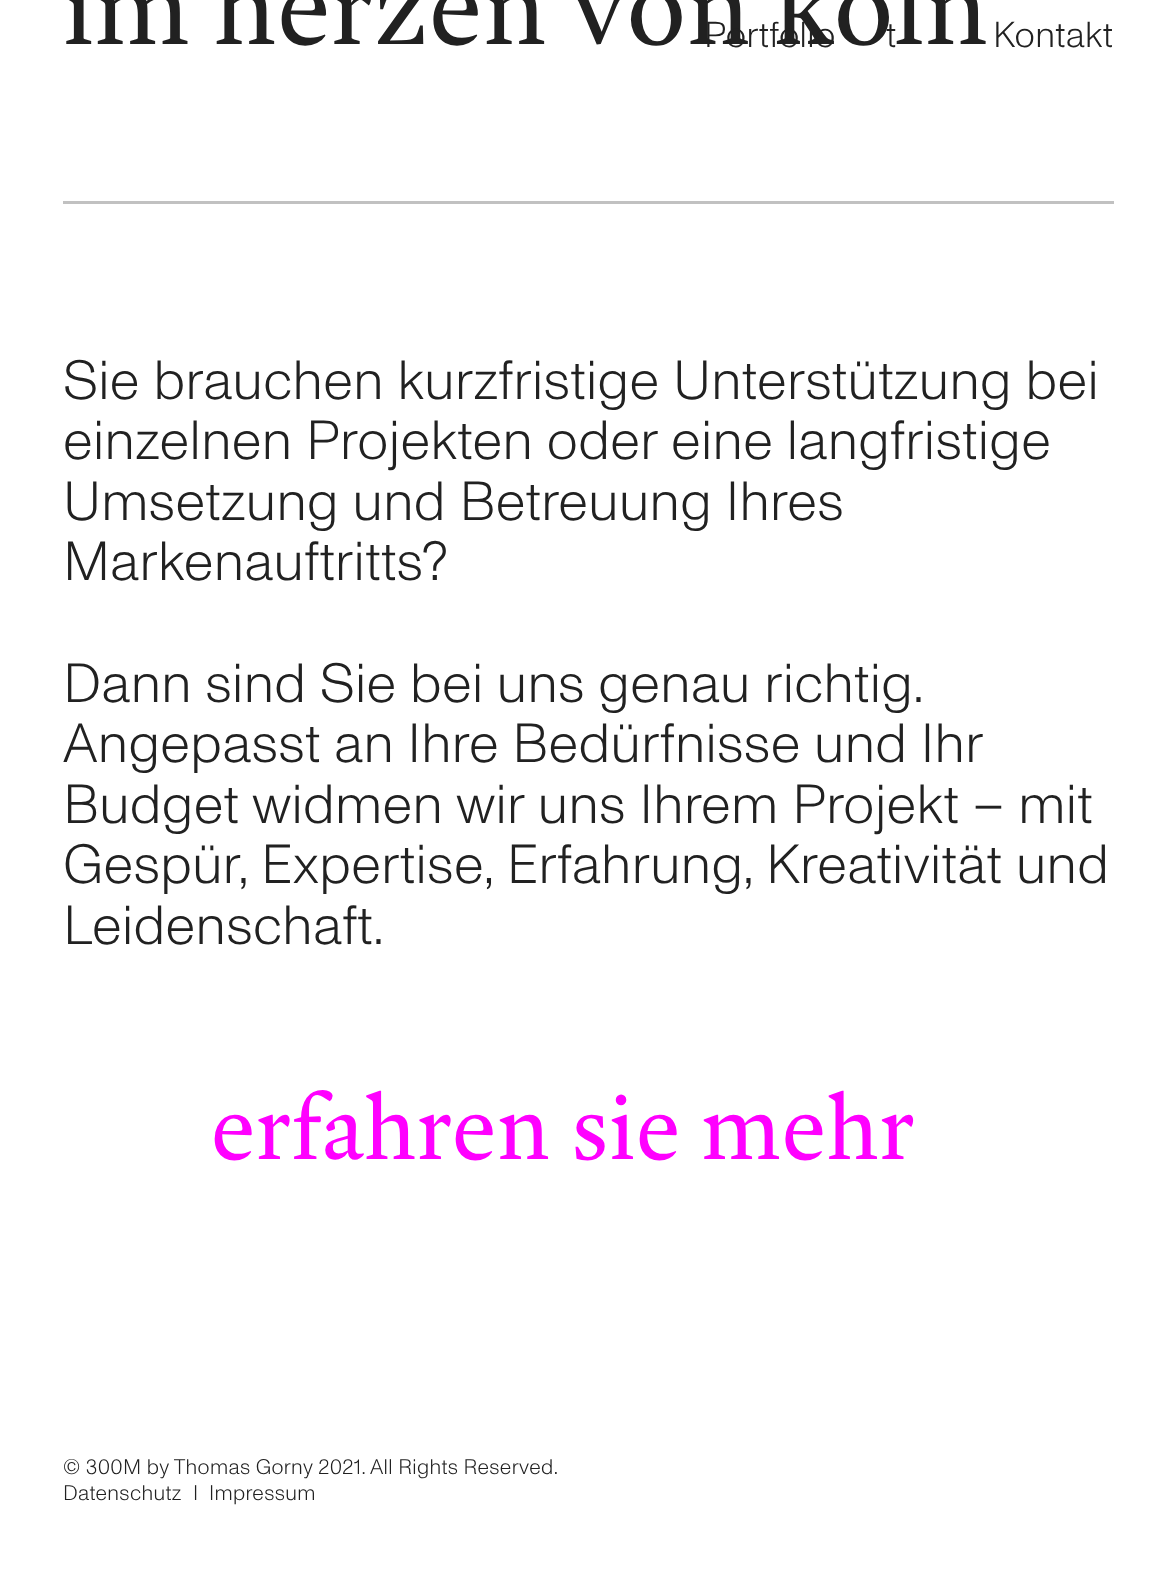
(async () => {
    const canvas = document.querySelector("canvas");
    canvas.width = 1176;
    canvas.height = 1586;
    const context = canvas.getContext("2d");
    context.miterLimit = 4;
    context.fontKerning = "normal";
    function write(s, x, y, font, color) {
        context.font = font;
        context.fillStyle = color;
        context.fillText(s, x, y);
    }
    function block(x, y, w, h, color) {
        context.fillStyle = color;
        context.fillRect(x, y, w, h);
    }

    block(0, 0, 1176, 1586, "rgb(255, 255, 255)");
    context.letterSpacing = "1.1px";
    write("im herzen von köln", 63, 44, "110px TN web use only", "rgb(33, 33, 33)");
    block(63, 201, 1051, 3, "rgb(193, 193, 193)");
    context.letterSpacing = "0.35px";
    write("Sie brauchen kurzfristige Unterstützung bei", 63, 399, "300 55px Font", "rgb(33, 33, 33)");
    write("einzelnen Projekten oder eine langfristige", 63, 459, "300 55px Font", "rgb(33, 33, 33)");
    write("Umsetzung und Betreuung Ihres", 63, 520, "300 55px Font", "rgb(33, 33, 33)");
    write("Markenauftritts?", 63, 580, "300 55px Font", "rgb(33, 33, 33)");
    context.wordSpacing = "-0.25px";
    write("Dann sind Sie bei uns genau richtig.", 63, 702, "300 55px Font", "rgb(33, 33, 33)");
    write("Angepasst an Ihre Bedürfnisse und Ihr", 63, 762, "300 55px Font", "rgb(33, 33, 33)");
    context.wordSpacing = "0px";
    write("Budget widmen wir uns Ihrem Projekt – mit", 63, 823, "300 55px Font", "rgb(33, 33, 33)");
    write("Gespür, Expertise, Erfahrung, Kreativität und", 63, 883, "300 55px Font", "rgb(33, 33, 33)");
    write("Leidenschaft.", 63, 944, "300 55px Font", "rgb(33, 33, 33)");
    context.letterSpacing = "1.1px";
    write("erfahren sie mehr", 211, 1159, "91.75px TN web use only", "rgb(255, 0, 255)");
    context.letterSpacing = "0.35px";
    write("Portfolio", 704, 47, "300 36px Font", "rgb(33, 33, 33)");
    write("t", 886, 47, "300 36px Font", "rgb(33, 33, 33)");
    write("Kontakt", 993, 47, "300 36px Font", "rgb(33, 33, 33)");
    context.wordSpacing = "-0.25px";
    write("© 300M by Thomas Gorny 2021. All Rights Reserved.", 63, 1474, "300 21.2px Font", "rgb(33, 33, 33)");
    context.wordSpacing = "0px";
    write("Datenschutz", 63, 1500, "300 21.2px Font", "rgb(33, 33, 33)");
    write("I", 193, 1500, "300 21.2px Font", "rgb(33, 33, 33)");
    write("Impressum", 209, 1500, "300 21.2px Font", "rgb(33, 33, 33)");
})();
